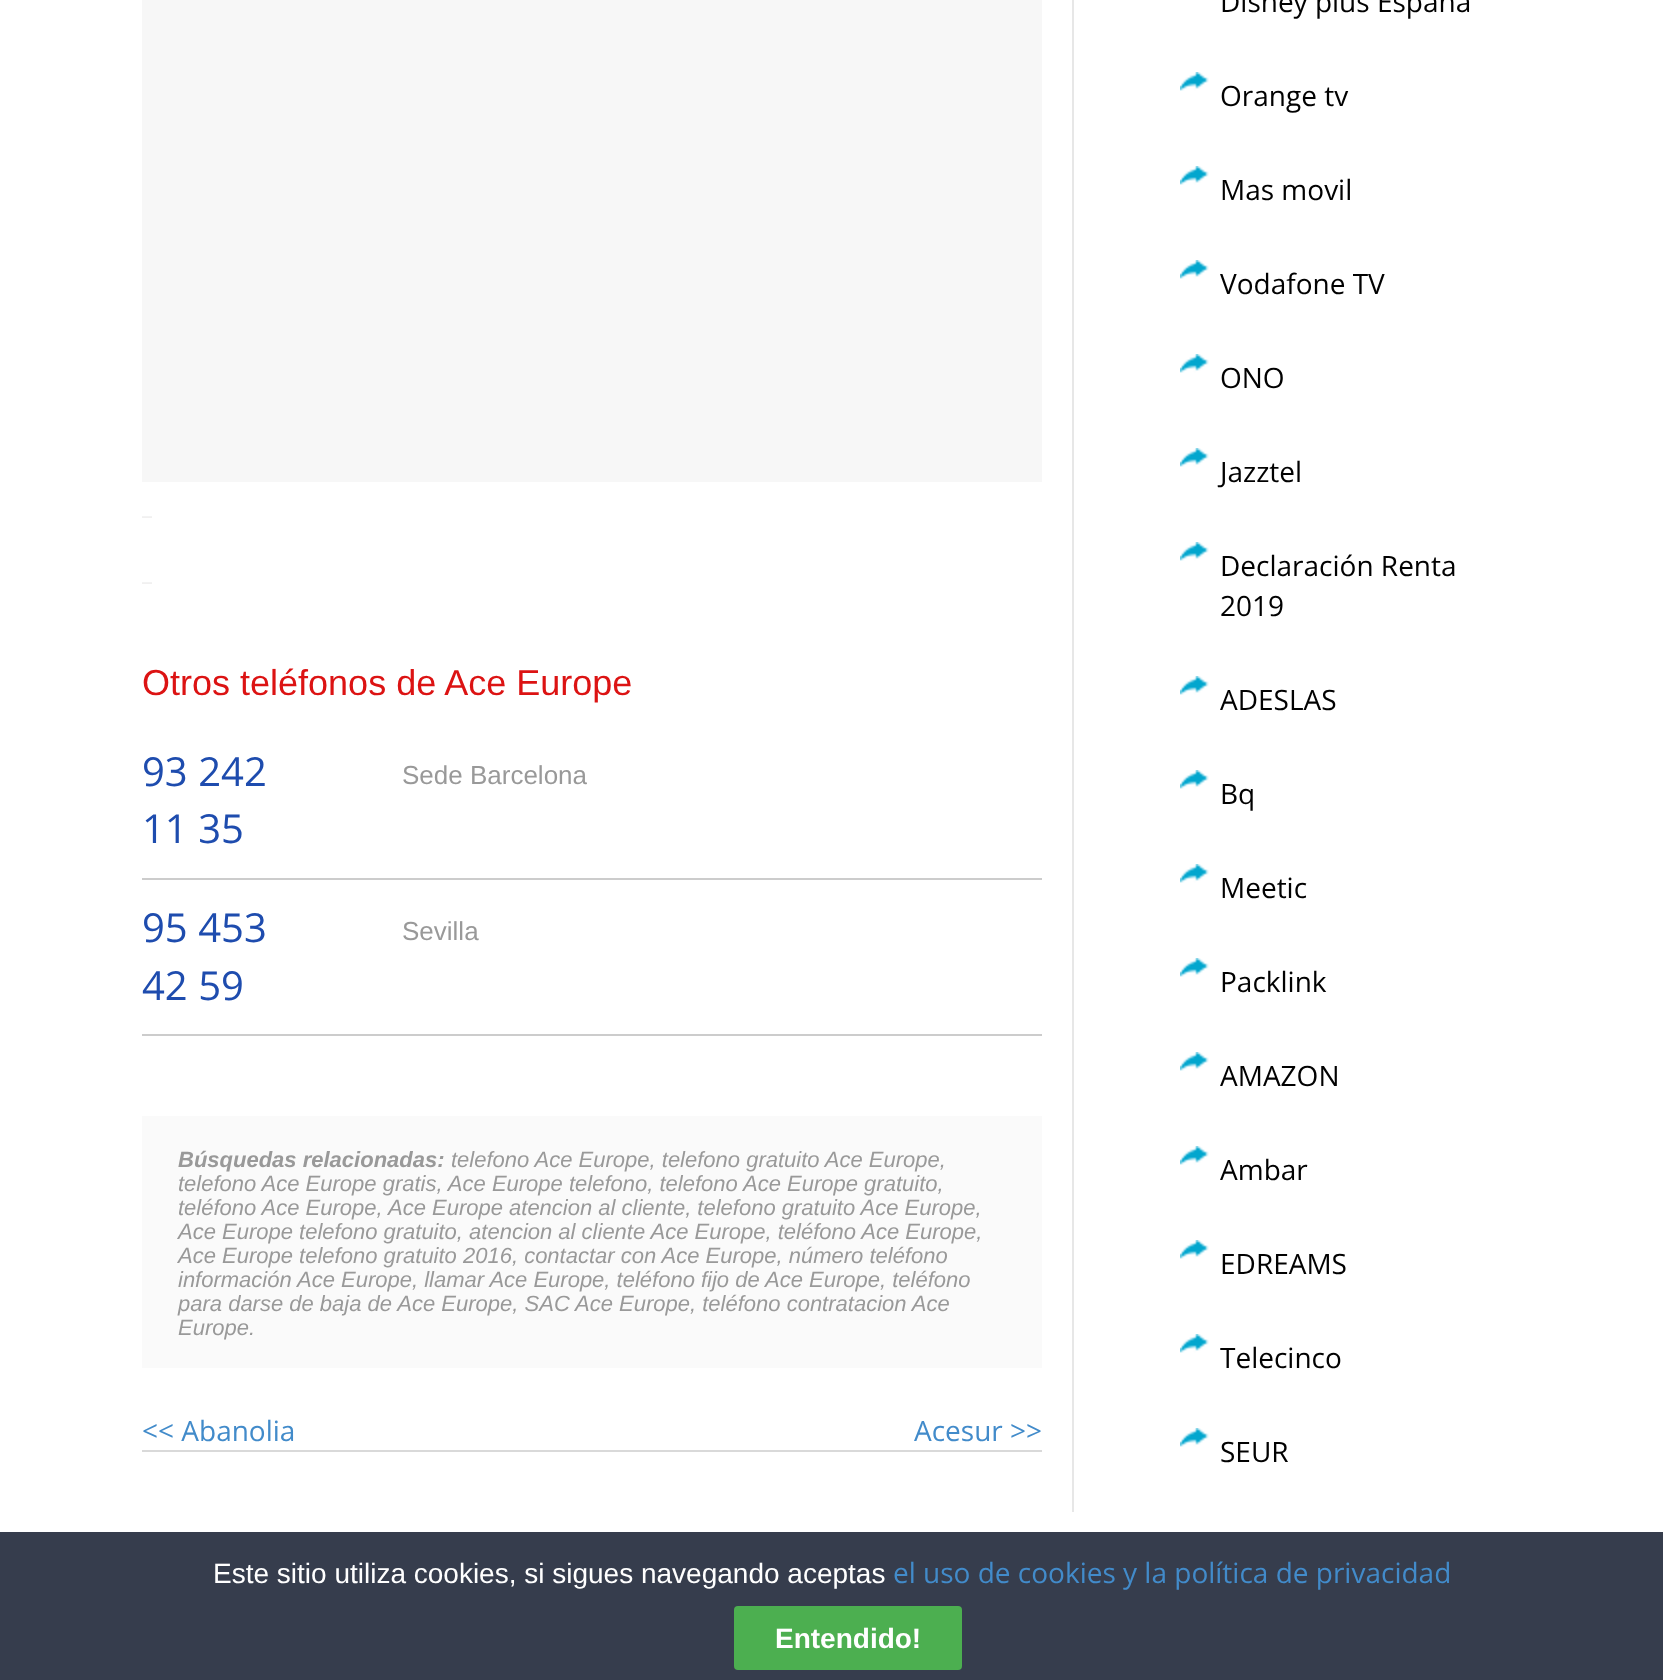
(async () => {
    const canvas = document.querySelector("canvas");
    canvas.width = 1663;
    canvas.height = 1680;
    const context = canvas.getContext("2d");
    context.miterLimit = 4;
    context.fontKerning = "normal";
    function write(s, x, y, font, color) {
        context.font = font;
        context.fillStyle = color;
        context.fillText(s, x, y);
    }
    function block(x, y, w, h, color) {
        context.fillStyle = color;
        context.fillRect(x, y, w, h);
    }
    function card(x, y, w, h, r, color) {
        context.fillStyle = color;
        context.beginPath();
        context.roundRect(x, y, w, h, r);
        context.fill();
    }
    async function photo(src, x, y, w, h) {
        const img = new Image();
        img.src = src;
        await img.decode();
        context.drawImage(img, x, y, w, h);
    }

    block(0, 0, 1663, 1680, "rgb(255, 255, 255)");
    block(142, 0, 900, 482, "rgb(247, 247, 247)");
    await photo("media/1.png", 142, 516, 2, 2);
    await photo("media/1.png", 144, 516, 2, 2);
    await photo("media/1.png", 146, 516, 2, 2);
    await photo("media/1.png", 148, 516, 2, 2);
    await photo("media/1.png", 150, 516, 2, 2);
    await photo("media/1.png", 142, 582, 2, 2);
    await photo("media/1.png", 144, 582, 2, 2);
    await photo("media/1.png", 146, 582, 2, 2);
    await photo("media/1.png", 148, 582, 2, 2);
    await photo("media/1.png", 150, 582, 2, 2);
    write("Otros teléfonos de Ace Europe", 142, 695, "36px Liberation Sans", "rgb(220, 19, 19)");
    block(142, 878, 900, 2, "rgb(204, 204, 204)");
    write("93 242", 142, 786, "40px Open Sans", "rgb(30, 76, 174)");
    write("11 35", 142, 843, "40px Open Sans", "rgb(30, 76, 174)");
    write("Sede Barcelona", 402, 784, "26px Liberation Sans", "rgb(153, 153, 153)");
    block(142, 1034, 900, 2, "rgb(204, 204, 204)");
    write("95 453", 142, 942, "40px Open Sans", "rgb(30, 76, 174)");
    write("42 59", 142, 1000, "40px Open Sans", "rgb(30, 76, 174)");
    write("Sevilla", 402, 940, "26px Liberation Sans", "rgb(153, 153, 153)");
    block(142, 1116, 900, 252, "rgb(250, 250, 250)");
    write("Búsquedas relacionadas:", 178, 1167, "italic bold 22px Liberation Sans", "rgb(153, 153, 153)");
    write("telefono Ace Europe, telefono gratuito Ace Europe,", 451, 1167, "italic 22px Liberation Sans", "rgb(153, 153, 153)");
    write("telefono Ace Europe gratis, Ace Europe telefono, telefono Ace Europe gratuito,", 178, 1191, "italic 22px Liberation Sans", "rgb(153, 153, 153)");
    write("teléfono Ace Europe, Ace Europe atencion al cliente, telefono gratuito Ace Europe,", 178, 1215, "italic 22px Liberation Sans", "rgb(153, 153, 153)");
    write("Ace Europe telefono gratuito, atencion al cliente Ace Europe, teléfono Ace Europe,", 178, 1239, "italic 22px Liberation Sans", "rgb(153, 153, 153)");
    write("Ace Europe telefono gratuito 2016, contactar con Ace Europe, número teléfono", 178, 1263, "italic 22px Liberation Sans", "rgb(153, 153, 153)");
    write("información Ace Europe, llamar Ace Europe, teléfono fijo de Ace Europe, teléfono", 178, 1287, "italic 22px Liberation Sans", "rgb(153, 153, 153)");
    write("para darse de baja de Ace Europe, SAC Ace Europe, teléfono contratacion Ace", 178, 1311, "italic 22px Liberation Sans", "rgb(153, 153, 153)");
    write("Europe.", 178, 1335, "italic 22px Liberation Sans", "rgb(153, 153, 153)");
    write("<< Abanolia", 142, 1441, "28px Open Sans", "rgb(66, 139, 202)");
    write("Acesur >>", 914, 1441, "28px Open Sans", "rgb(66, 139, 202)");
    block(142, 1450, 900, 2, "rgb(217, 217, 217)");
    block(1072, 0, 2, 1512, "rgb(231, 231, 231)");
    write("Disney plus España", 1220, 12, "28px Open Sans", "rgb(1, 1, 1)");
    await photo("media/2.png", 1180, 72, 29, 19);
    write("Orange tv", 1220, 106, "28px Open Sans", "rgb(1, 1, 1)");
    await photo("media/2.png", 1180, 166, 29, 19);
    write("Mas movil", 1220, 200, "28px Open Sans", "rgb(1, 1, 1)");
    await photo("media/2.png", 1180, 260, 29, 19);
    write("Vodafone TV", 1220, 294, "28px Open Sans", "rgb(1, 1, 1)");
    await photo("media/2.png", 1180, 354, 29, 19);
    write("ONO", 1220, 388, "28px Open Sans", "rgb(1, 1, 1)");
    await photo("media/2.png", 1180, 448, 29, 19);
    write("Jazztel", 1220, 482, "28px Open Sans", "rgb(1, 1, 1)");
    await photo("media/2.png", 1180, 542, 29, 19);
    write("Declaración Renta", 1220, 576, "28px Open Sans", "rgb(1, 1, 1)");
    write("2019", 1220, 616, "28px Open Sans", "rgb(1, 1, 1)");
    await photo("media/2.png", 1180, 676, 29, 19);
    write("ADESLAS", 1220, 710, "28px Open Sans", "rgb(1, 1, 1)");
    await photo("media/2.png", 1180, 770, 29, 19);
    write("Bq", 1220, 804, "28px Open Sans", "rgb(1, 1, 1)");
    await photo("media/2.png", 1180, 864, 29, 19);
    write("Meetic", 1220, 898, "28px Open Sans", "rgb(1, 1, 1)");
    await photo("media/2.png", 1180, 958, 29, 19);
    write("Packlink", 1220, 992, "28px Open Sans", "rgb(1, 1, 1)");
    await photo("media/2.png", 1180, 1052, 29, 19);
    write("AMAZON", 1220, 1086, "28px Open Sans", "rgb(1, 1, 1)");
    await photo("media/2.png", 1180, 1146, 29, 19);
    write("Ambar", 1220, 1180, "28px Open Sans", "rgb(1, 1, 1)");
    await photo("media/2.png", 1180, 1240, 29, 19);
    write("EDREAMS", 1220, 1274, "28px Open Sans", "rgb(1, 1, 1)");
    await photo("media/2.png", 1180, 1334, 29, 19);
    write("Telecinco", 1220, 1368, "28px Open Sans", "rgb(1, 1, 1)");
    await photo("media/2.png", 1180, 1428, 29, 19);
    write("SEUR", 1220, 1462, "28px Open Sans", "rgb(1, 1, 1)");
    block(0, 1532, 1663, 148, "rgb(54, 61, 77)");
    write("Este sitio utiliza cookies, si sigues navegando aceptas", 213, 1583, "28px Liberation Sans", "rgb(255, 255, 255)");
    write("el uso de cookies y la política de privacidad", 893, 1583, "28px Open Sans", "rgb(66, 139, 202)");
    card(734, 1606, 228, 64, 4, "rgb(76, 175, 80)");
    write("Entendido!", 775, 1648, "bold 28px Liberation Sans", "rgb(255, 255, 255)");
})();
